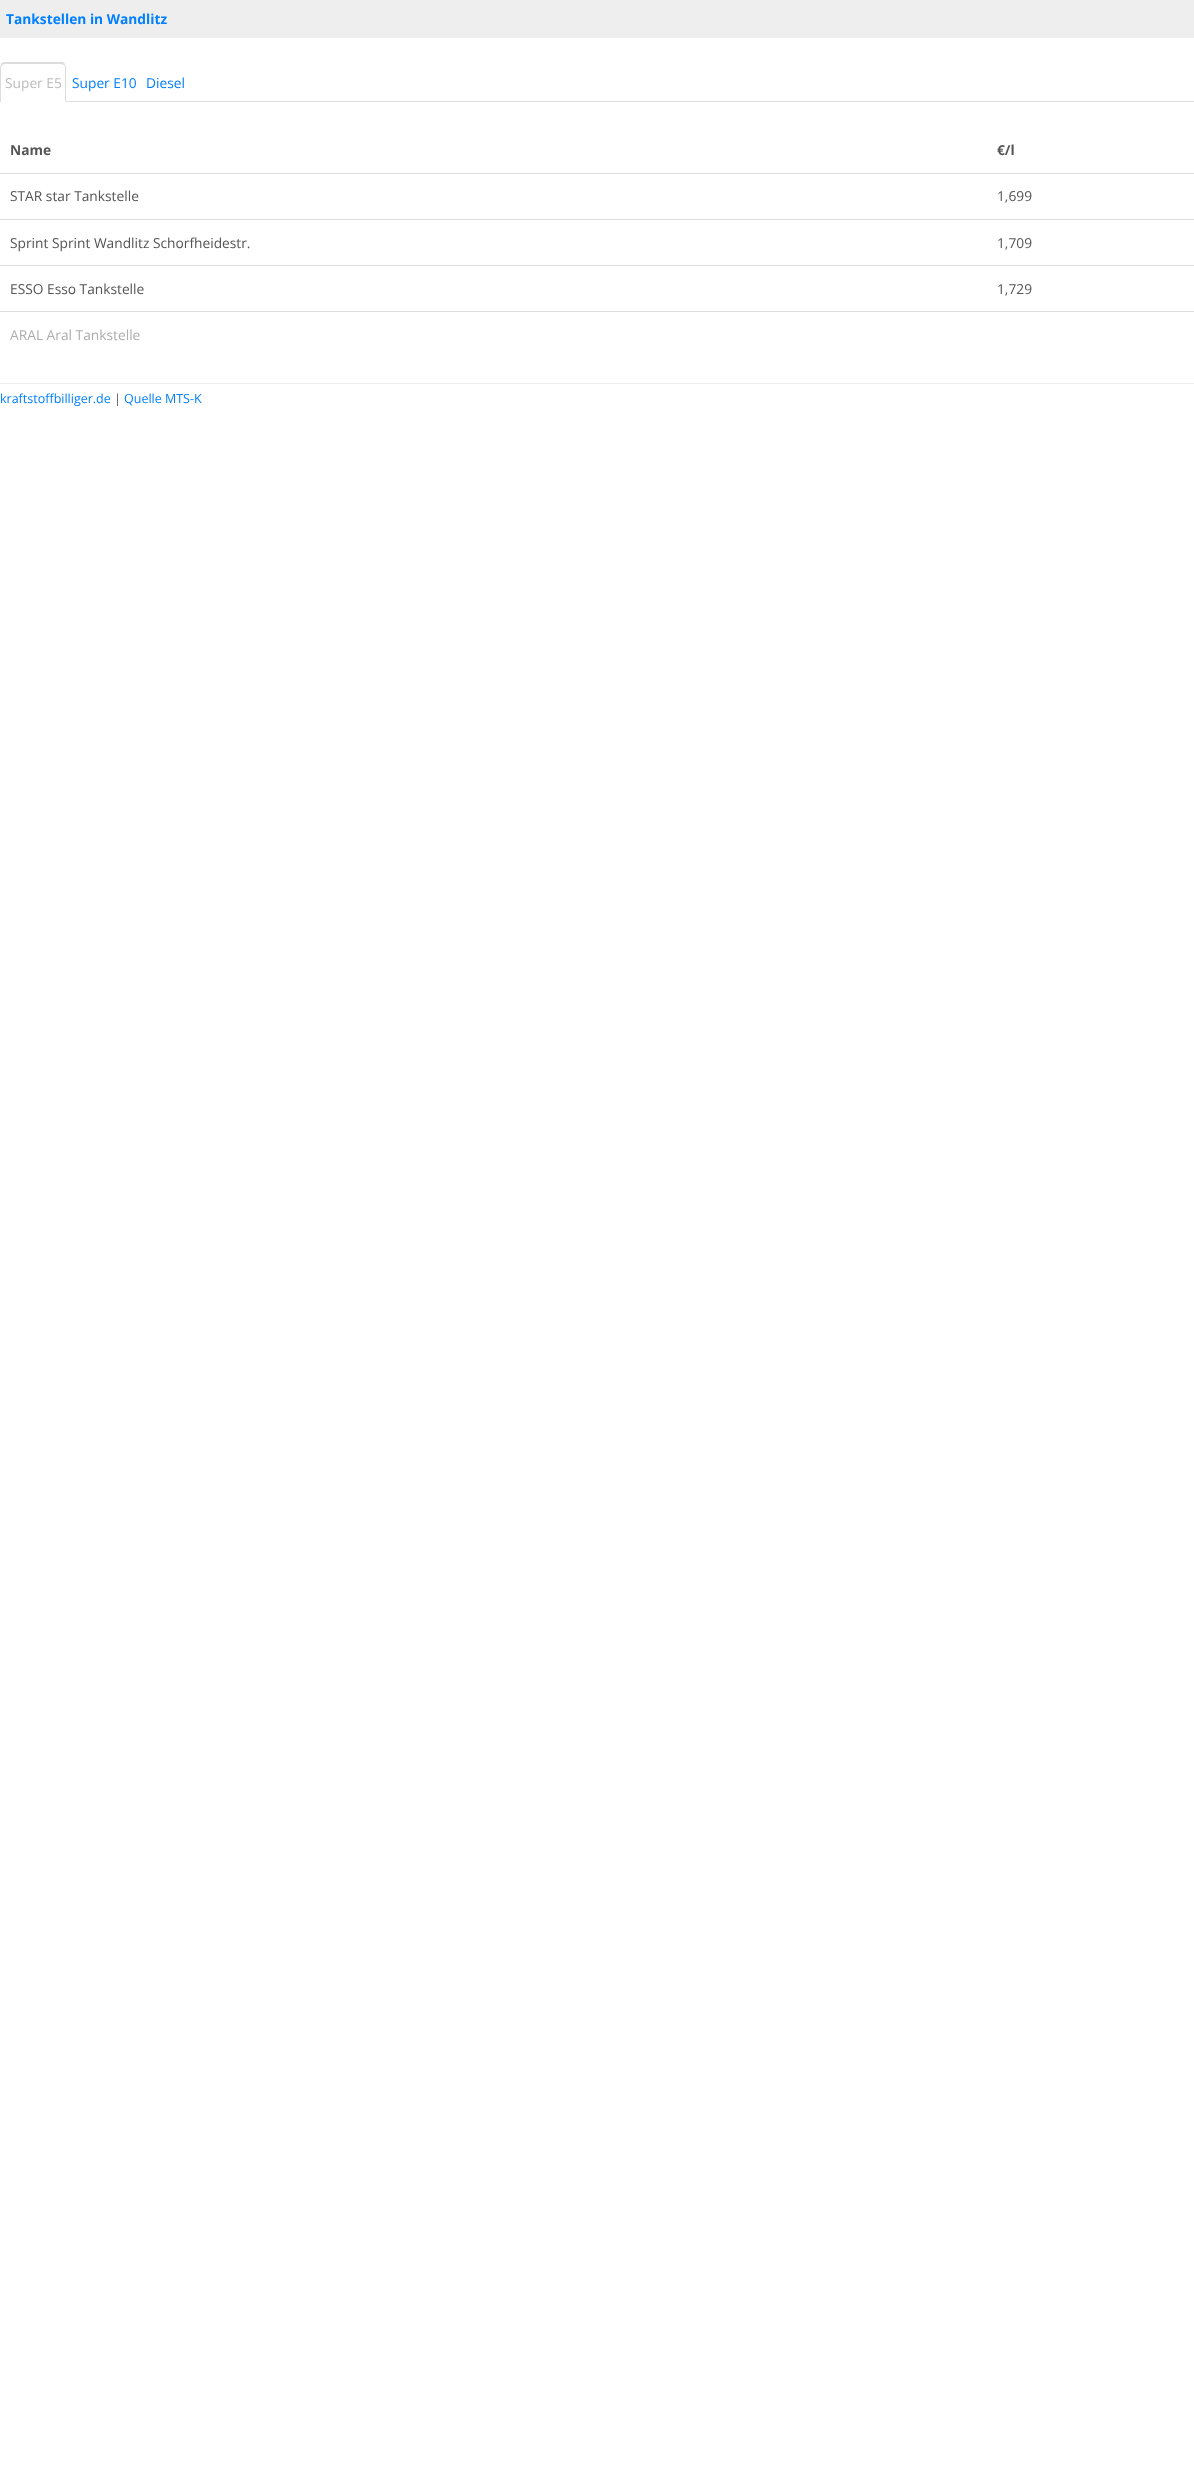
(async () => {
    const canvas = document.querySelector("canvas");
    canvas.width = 1194;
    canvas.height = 2478;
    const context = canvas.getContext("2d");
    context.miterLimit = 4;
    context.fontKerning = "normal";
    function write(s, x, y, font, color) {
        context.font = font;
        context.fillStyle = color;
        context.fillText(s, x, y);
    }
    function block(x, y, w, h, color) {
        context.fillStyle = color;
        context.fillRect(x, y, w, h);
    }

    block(0, 0, 1194, 2478, "rgb(255, 255, 255)");
    block(0, 0, 1194, 38, "rgb(238, 238, 238)");
    write("Tankstellen in Wandlitz", 6, 24, "bold 13.75px Open Sans", "rgb(0, 127, 255)");
    block(66, 101, 1128, 1, "rgb(221, 221, 221)");
    context.beginPath();
    context.moveTo(5, 64);
    context.lineTo(2, 65);
    context.lineTo(1, 64);
    context.lineTo(3, 62);
    context.lineTo(63, 62);
    context.lineTo(65, 64);
    context.lineTo(64, 65);
    context.lineTo(61, 64);
    context.closePath();
    context.fill();
    context.beginPath();
    context.moveTo(64.5, 64);
    context.bezierCurveTo(65.5, 65, 66, 66.5, 66, 68);
    context.lineTo(66, 102);
    context.lineTo(65, 101);
    context.lineTo(65, 68);
    context.bezierCurveTo(65, 66.5, 64.5, 65.5, 64, 65);
    context.closePath();
    context.fill();
    context.beginPath();
    context.moveTo(0, 68);
    context.lineTo(0, 102);
    context.lineTo(0.5, 102);
    context.lineTo(1.5, 101);
    context.lineTo(1, 101);
    context.lineTo(1, 68);
    context.bezierCurveTo(1, 66.5, 1.5, 65.5, 2.5, 65);
    context.lineTo(1.5, 64);
    context.bezierCurveTo(0.5, 65, 0, 66.5, 0, 68);
    context.closePath();
    context.fill();
    write("Super E5", 5, 88, "13.75px Open Sans", "rgb(187, 187, 187)");
    write("Super E10", 72, 88, "13.75px Open Sans", "rgb(0, 127, 255)");
    write("Diesel", 146, 88, "13.75px Open Sans", "rgb(0, 127, 255)");
    write("Name", 10, 155, "bold 13.75px Open Sans", "rgb(85, 85, 85)");
    write("€/l", 997, 155, "bold 13.75px Open Sans", "rgb(85, 85, 85)");
    write("STAR star Tankstelle", 10, 201, "13.75px Open Sans", "rgb(85, 85, 85)");
    block(0, 173, 1194, 1, "rgb(221, 221, 221)");
    write("1,699", 997, 201, "13.75px Open Sans", "rgb(85, 85, 85)");
    write("Sprint Sprint Wandlitz Schorfheidestr.", 10, 248, "13.75px Open Sans", "rgb(85, 85, 85)");
    block(0, 219, 1194, 1, "rgb(221, 221, 221)");
    write("1,709", 997, 248, "13.75px Open Sans", "rgb(85, 85, 85)");
    write("ESSO Esso Tankstelle", 10, 294, "13.75px Open Sans", "rgb(85, 85, 85)");
    block(0, 265, 1194, 1, "rgb(221, 221, 221)");
    write("1,729", 997, 294, "13.75px Open Sans", "rgb(85, 85, 85)");
    block(0, 311, 1194, 1, "rgb(221, 221, 221)");
    write("ARAL Aral Tankstelle", 10, 340, "13.75px Open Sans", "rgb(173, 173, 173)");
    block(0, 383, 1194, 1, "rgb(238, 238, 238)");
    write("kraftstoffbilliger.de", 0, 403, "12.5px Open Sans", "rgb(0, 127, 255)");
    write("|", 114, 403, "12.5px Open Sans", "rgb(85, 85, 85)");
    write("Quelle MTS-K", 124, 403, "12.5px Open Sans", "rgb(0, 127, 255)");
})();
